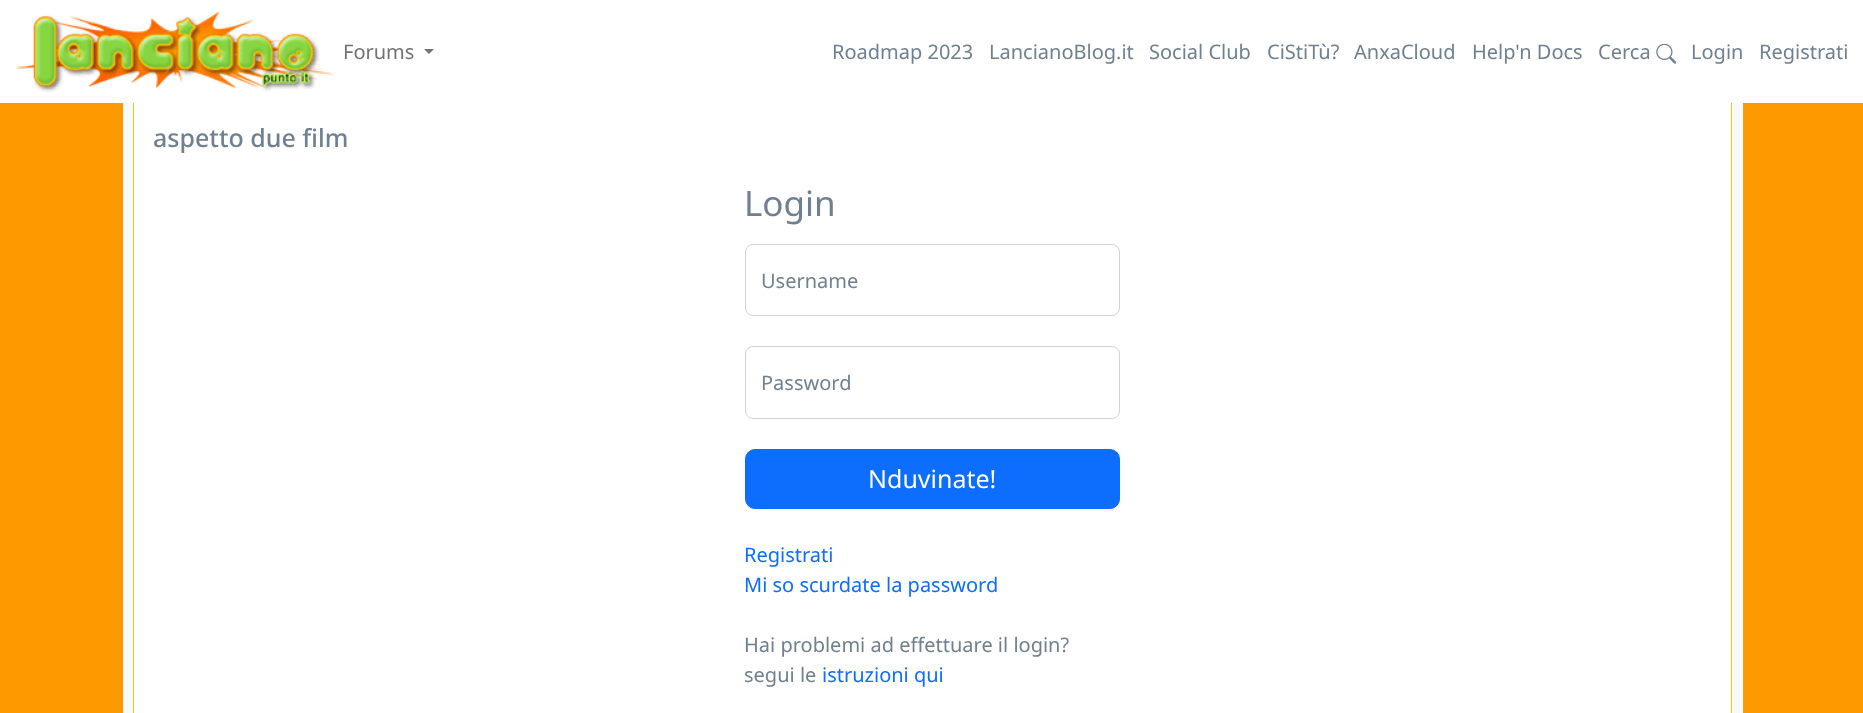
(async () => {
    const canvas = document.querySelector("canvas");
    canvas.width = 1863;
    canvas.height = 713;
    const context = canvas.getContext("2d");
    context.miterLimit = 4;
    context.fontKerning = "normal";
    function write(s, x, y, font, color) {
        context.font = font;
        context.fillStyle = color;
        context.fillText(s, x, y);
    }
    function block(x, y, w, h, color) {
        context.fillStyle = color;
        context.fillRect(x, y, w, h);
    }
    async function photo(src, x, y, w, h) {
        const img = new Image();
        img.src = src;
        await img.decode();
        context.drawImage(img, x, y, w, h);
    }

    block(0, 0, 1863, 713, "rgb(255, 153, 0)");
    block(0, 0, 1863, 103, "rgb(255, 255, 255)");
    await photo("media/1.png", 16, 11, 317, 82);
    write("Forums", 343, 59, "20px Noto Sans", "rgb(115, 115, 115)");
    context.beginPath();
    context.moveTo(424, 49);
    context.lineTo(434, 49);
    context.lineTo(429, 54);
    context.closePath();
    context.fill();
    write("Roadmap 2023", 832, 59, "20px Noto Sans", "rgb(112, 128, 144)");
    write("LancianoBlog.it", 989, 59, "20px Noto Sans", "rgb(112, 128, 144)");
    write("Social Club", 1149, 59, "20px Noto Sans", "rgb(112, 128, 144)");
    write("CiStiTù?", 1267, 59, "20px Noto Sans", "rgb(112, 128, 144)");
    write("AnxaCloud", 1354, 59, "20px Noto Sans", "rgb(112, 128, 144)");
    write("Help'n Docs", 1472, 59, "20px Noto Sans", "rgb(112, 128, 144)");
    write("Cerca", 1598, 59, "20px Noto Sans", "rgb(112, 128, 144)");
    await photo("media/2.png", 1656, 44, 20, 20);
    write("Login", 1691, 59, "20px Noto Sans", "rgb(112, 128, 144)");
    write("Registrati", 1759, 59, "20px Noto Sans", "rgb(112, 128, 144)");
    block(123, 103, 1620, 610, "rgb(248, 249, 250)");
    block(134, 103, 1599, 610, "rgb(255, 255, 255)");
    block(1731, 103, 1, 610, "rgb(255, 193, 7)");
    block(133, 103, 1, 610, "rgb(255, 193, 7)");
    write("aspetto due film", 153, 147, "500 25px Noto Sans", "rgb(112, 128, 144)");
    write("Login", 744, 216, "35px Noto Sans", "rgb(112, 128, 144)");
    context.beginPath();
    context.roundRect(745.5, 244.5, 374, 71, 7.5);
    context.strokeStyle = "rgb(206, 212, 218)";
    context.stroke();
    write("Username", 761, 288, "20px Noto Sans", "rgb(112, 128, 144)");
    context.beginPath();
    context.roundRect(745.5, 346.5, 374, 72, 7.5);
    context.stroke();
    write("Password", 761, 390, "20px Noto Sans", "rgb(112, 128, 144)");
    context.fillStyle = "rgb(13, 110, 253)";
    context.beginPath();
    context.roundRect(745.5, 449.5, 374, 59, 9.5);
    context.fill();
    context.strokeStyle = "rgb(13, 110, 253)";
    context.stroke();
    write("Nduvinate!", 868, 488, "25px Noto Sans", "rgb(255, 255, 255)");
    write("Registrati", 744, 562, "20px Noto Sans", "rgb(13, 110, 253)");
    write("Mi so scurdate la password", 744, 592, "20px Noto Sans", "rgb(13, 110, 253)");
    write("Hai problemi ad effettuare il login?", 744, 652, "20px Noto Sans", "rgb(112, 128, 144)");
    write("segui le", 744, 682, "20px Noto Sans", "rgb(112, 128, 144)");
    write("istruzioni qui", 822, 682, "20px Noto Sans", "rgb(13, 110, 253)");
})();
